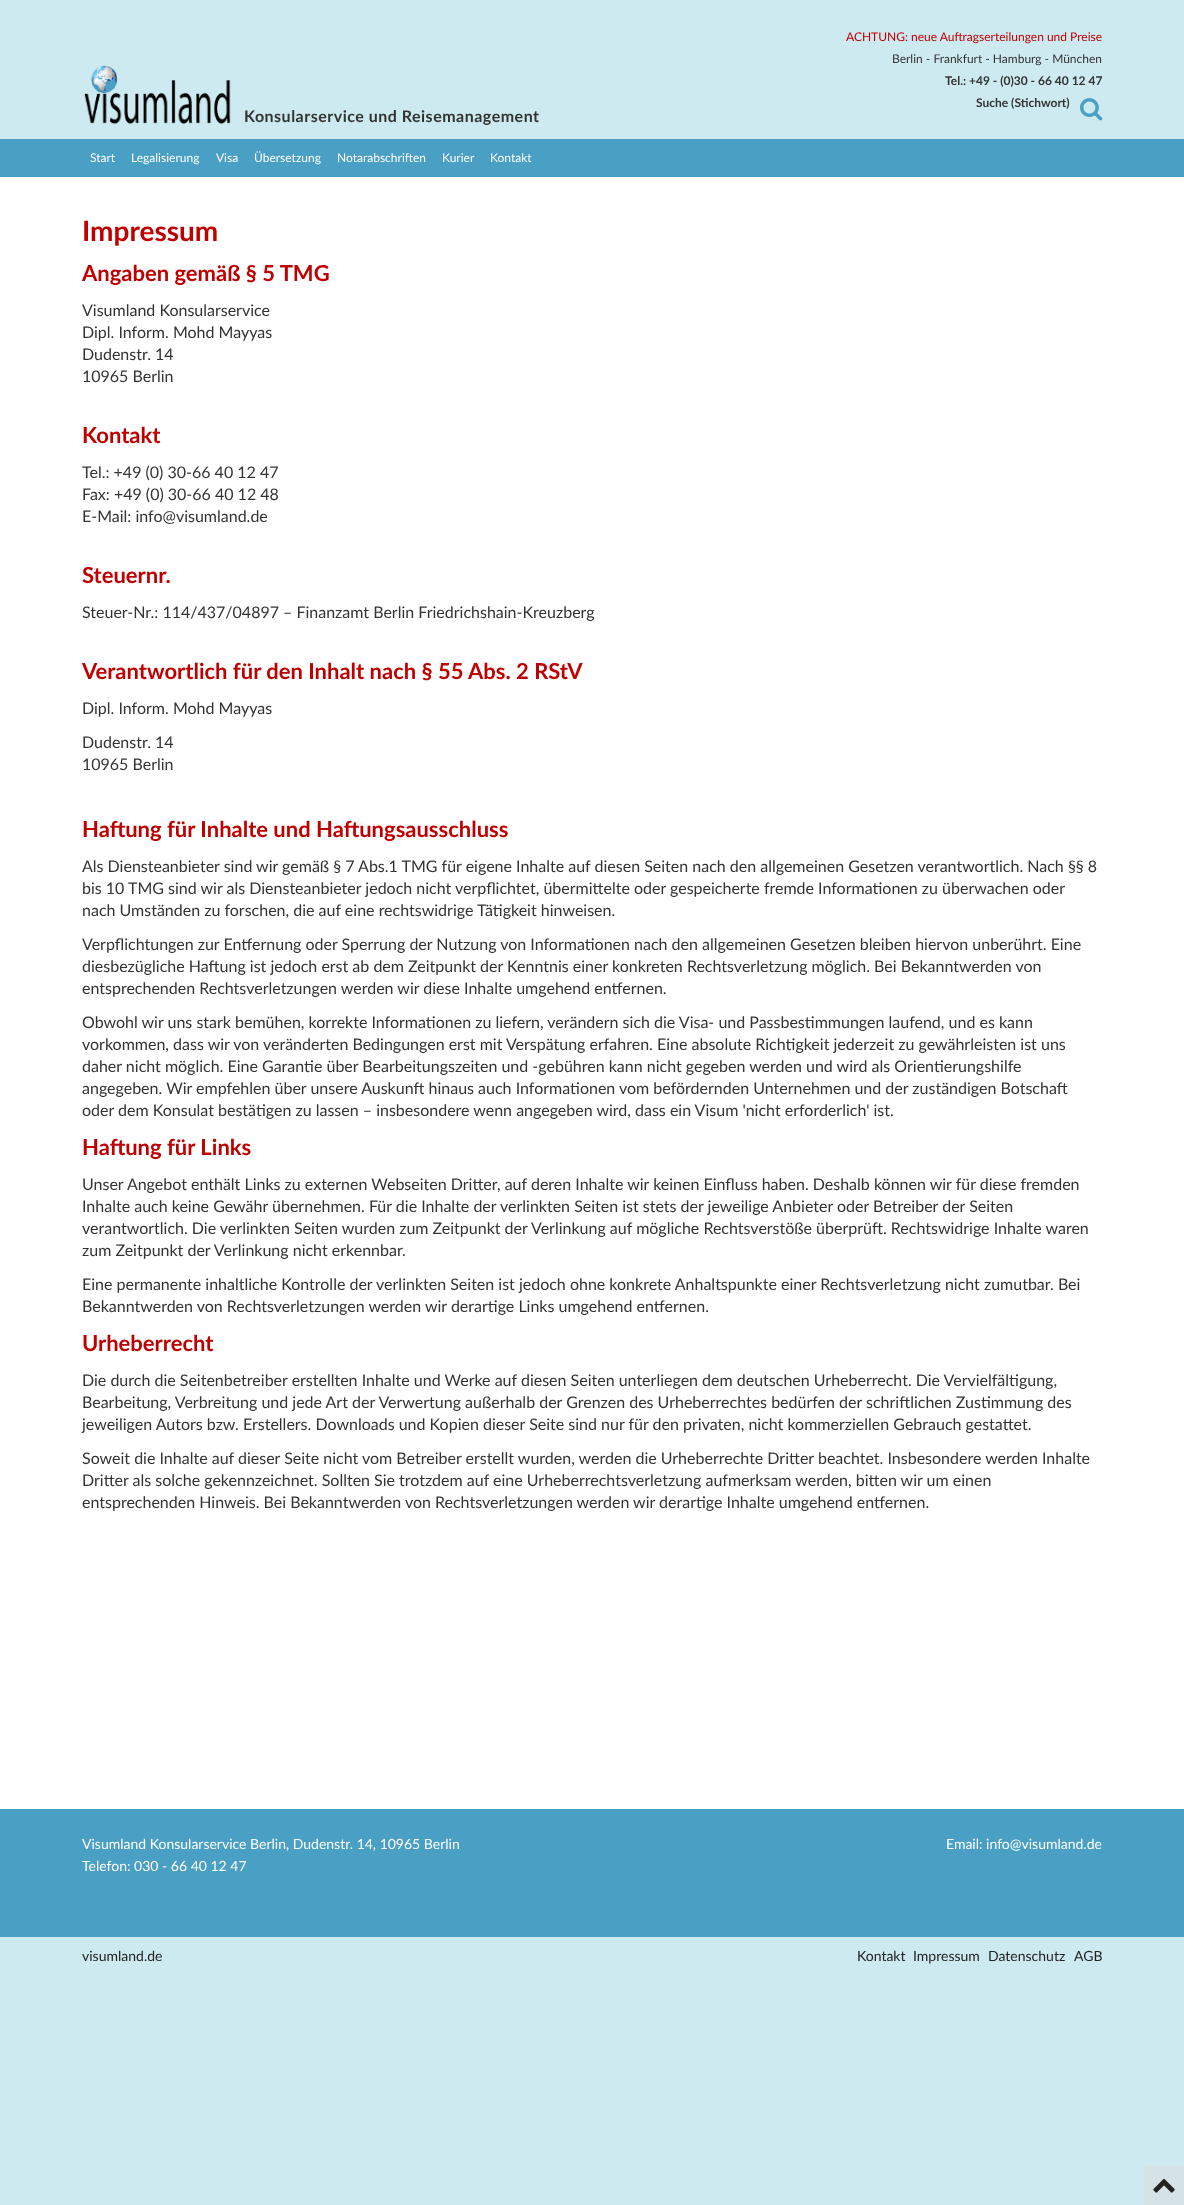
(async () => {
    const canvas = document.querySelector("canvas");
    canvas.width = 1184;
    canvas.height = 2205;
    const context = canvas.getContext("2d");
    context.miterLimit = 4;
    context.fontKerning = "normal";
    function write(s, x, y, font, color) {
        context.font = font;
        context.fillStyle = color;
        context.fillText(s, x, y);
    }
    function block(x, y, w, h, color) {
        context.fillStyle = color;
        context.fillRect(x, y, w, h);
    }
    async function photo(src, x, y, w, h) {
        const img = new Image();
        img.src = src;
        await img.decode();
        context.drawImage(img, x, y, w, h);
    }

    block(0, 0, 1184, 2205, "rgb(205, 234, 240)");
    write("ACHTUNG: neue Auftragserteilungen und Preise", 846, 41, "12px Lato", "rgb(192, 0, 0)");
    write("Berlin - Frankfurt - Hamburg - München", 892, 63, "12px Lato", "rgb(51, 51, 51)");
    await photo("media/1.png", 84, 65, 147, 60);
    write("Tel.: +49 - (0)30 - 66 40 12 47", 945, 85, "bold 12px Lato", "rgb(51, 51, 51)");
    context.letterSpacing = "0.5px";
    write("Konsularservice und Reisemanagement", 244, 122, "bold 16px Lato", "rgb(51, 51, 51)");
    context.letterSpacing = "0px";
    write("Suche (Stichwort)", 976, 107, "bold 12px Lato", "rgb(51, 51, 51)");
    await photo("media/2.png", 1080, 98, 23, 23);
    block(0, 139, 1184, 38, "rgb(73, 159, 196)");
    write("Start", 90, 162, "12px Lato", "rgb(255, 255, 255)");
    write("Legalisierung", 131, 162, "12px Lato", "rgb(255, 255, 255)");
    write("Visa", 216, 162, "12px Lato", "rgb(255, 255, 255)");
    write("Übersetzung", 254, 162, "12px Lato", "rgb(255, 255, 255)");
    write("Notarabschriften", 337, 162, "12px Lato", "rgb(255, 255, 255)");
    write("Kurier", 442, 162, "12px Lato", "rgb(255, 255, 255)");
    write("Kontakt", 490, 162, "12px Lato", "rgb(255, 255, 255)");
    block(0, 177, 1184, 1632, "rgb(255, 255, 255)");
    write("Impressum", 82, 241, "bold 28px Lato", "rgb(192, 0, 0)");
    write("Angaben gemäß § 5 TMG", 82, 281, "bold 22px Lato", "rgb(192, 0, 0)");
    write("Visumland Konsularservice", 82, 316, "16px Lato", "rgb(51, 51, 51)");
    write("Dipl. Inform. Mohd Mayyas", 82, 338, "16px Lato", "rgb(51, 51, 51)");
    write("Dudenstr. 14", 82, 360, "16px Lato", "rgb(51, 51, 51)");
    write("10965 Berlin", 82, 382, "16px Lato", "rgb(51, 51, 51)");
    write("Kontakt", 82, 443, "bold 22px Lato", "rgb(192, 0, 0)");
    write("Tel.: +49 (0) 30-66 40 12 47", 82, 478, "16px Lato", "rgb(51, 51, 51)");
    write("Fax: +49 (0) 30-66 40 12 48", 82, 500, "16px Lato", "rgb(51, 51, 51)");
    write("E-Mail: info@visumland.de", 82, 522, "16px Lato", "rgb(51, 51, 51)");
    write("Steuernr.", 82, 583, "bold 22px Lato", "rgb(192, 0, 0)");
    write("Steuer-Nr.: 114/437/04897 – Finanzamt Berlin Friedrichshain-Kreuzberg", 82, 618, "16px Lato", "rgb(51, 51, 51)");
    write("Verantwortlich für den Inhalt nach § 55 Abs. 2 RStV", 82, 679, "bold 22px Lato", "rgb(192, 0, 0)");
    write("Dipl. Inform. Mohd Mayyas", 82, 714, "16px Lato", "rgb(51, 51, 51)");
    write("Dudenstr. 14", 82, 748, "16px Lato", "rgb(51, 51, 51)");
    write("10965 Berlin", 82, 770, "16px Lato", "rgb(51, 51, 51)");
    write("Haftung für Inhalte und Haftungsausschluss", 82, 837, "bold 22px Lato", "rgb(192, 0, 0)");
    write("Als Diensteanbieter sind wir gemäß § 7 Abs.1 TMG für eigene Inhalte auf diesen Seiten nach den allgemeinen Gesetzen verantwortlich. Nach §§ 8", 82, 872, "16px Lato", "rgb(51, 51, 51)");
    write("bis 10 TMG sind wir als Diensteanbieter jedoch nicht verpflichtet, übermittelte oder gespeicherte fremde Informationen zu überwachen oder", 82, 894, "16px Lato", "rgb(51, 51, 51)");
    write("nach Umständen zu forschen, die auf eine rechtswidrige Tätigkeit hinweisen.", 82, 916, "16px Lato", "rgb(51, 51, 51)");
    write("Verpflichtungen zur Entfernung oder Sperrung der Nutzung von Informationen nach den allgemeinen Gesetzen bleiben hiervon unberührt. Eine", 82, 950, "16px Lato", "rgb(51, 51, 51)");
    write("diesbezügliche Haftung ist jedoch erst ab dem Zeitpunkt der Kenntnis einer konkreten Rechtsverletzung möglich. Bei Bekanntwerden von", 82, 972, "16px Lato", "rgb(51, 51, 51)");
    write("entsprechenden Rechtsverletzungen werden wir diese Inhalte umgehend entfernen.", 82, 994, "16px Lato", "rgb(51, 51, 51)");
    write("Obwohl wir uns stark bemühen, korrekte Informationen zu liefern, verändern sich die Visa- und Passbestimmungen laufend, und es kann", 82, 1028, "16px Lato", "rgb(51, 51, 51)");
    write("vorkommen, dass wir von veränderten Bedingungen erst mit Verspätung erfahren. Eine absolute Richtigkeit jederzeit zu gewährleisten ist uns", 82, 1050, "16px Lato", "rgb(51, 51, 51)");
    write("daher nicht möglich. Eine Garantie über Bearbeitungszeiten und -gebühren kann nicht gegeben werden und wird als Orientierungshilfe", 82, 1072, "16px Lato", "rgb(51, 51, 51)");
    write("angegeben. Wir empfehlen über unsere Auskunft hinaus auch Informationen vom befördernden Unternehmen und der zuständigen Botschaft", 82, 1094, "16px Lato", "rgb(51, 51, 51)");
    write("oder dem Konsulat bestätigen zu lassen – insbesondere wenn angegeben wird, dass ein Visum 'nicht erforderlich' ist.", 82, 1116, "16px Lato", "rgb(51, 51, 51)");
    write("Haftung für Links", 82, 1155, "bold 22px Lato", "rgb(192, 0, 0)");
    write("Unser Angebot enthält Links zu externen Webseiten Dritter, auf deren Inhalte wir keinen Einfluss haben. Deshalb können wir für diese fremden", 82, 1190, "16px Lato", "rgb(51, 51, 51)");
    write("Inhalte auch keine Gewähr übernehmen. Für die Inhalte der verlinkten Seiten ist stets der jeweilige Anbieter oder Betreiber der Seiten", 82, 1212, "16px Lato", "rgb(51, 51, 51)");
    write("verantwortlich. Die verlinkten Seiten wurden zum Zeitpunkt der Verlinkung auf mögliche Rechtsverstöße überprüft. Rechtswidrige Inhalte waren", 82, 1234, "16px Lato", "rgb(51, 51, 51)");
    write("zum Zeitpunkt der Verlinkung nicht erkennbar.", 82, 1256, "16px Lato", "rgb(51, 51, 51)");
    write("Eine permanente inhaltliche Kontrolle der verlinkten Seiten ist jedoch ohne konkrete Anhaltspunkte einer Rechtsverletzung nicht zumutbar. Bei", 82, 1290, "16px Lato", "rgb(51, 51, 51)");
    write("Bekanntwerden von Rechtsverletzungen werden wir derartige Links umgehend entfernen.", 82, 1312, "16px Lato", "rgb(51, 51, 51)");
    write("Urheberrecht", 82, 1351, "bold 22px Lato", "rgb(192, 0, 0)");
    write("Die durch die Seitenbetreiber erstellten Inhalte und Werke auf diesen Seiten unterliegen dem deutschen Urheberrecht. Die Vervielfältigung,", 82, 1386, "16px Lato", "rgb(51, 51, 51)");
    write("Bearbeitung, Verbreitung und jede Art der Verwertung außerhalb der Grenzen des Urheberrechtes bedürfen der schriftlichen Zustimmung des", 82, 1408, "16px Lato", "rgb(51, 51, 51)");
    write("jeweiligen Autors bzw. Erstellers. Downloads und Kopien dieser Seite sind nur für den privaten, nicht kommerziellen Gebrauch gestattet.", 82, 1430, "16px Lato", "rgb(51, 51, 51)");
    write("Soweit die Inhalte auf dieser Seite nicht vom Betreiber erstellt wurden, werden die Urheberrechte Dritter beachtet. Insbesondere werden Inhalte", 82, 1464, "16px Lato", "rgb(51, 51, 51)");
    write("Dritter als solche gekennzeichnet. Sollten Sie trotzdem auf eine Urheberrechtsverletzung aufmerksam werden, bitten wir um einen", 82, 1486, "16px Lato", "rgb(51, 51, 51)");
    write("entsprechenden Hinweis. Bei Bekanntwerden von Rechtsverletzungen werden wir derartige Inhalte umgehend entfernen.", 82, 1508, "16px Lato", "rgb(51, 51, 51)");
    block(0, 1809, 1184, 128, "rgb(73, 159, 196)");
    write("Visumland Konsularservice Berlin, Dudenstr. 14, 10965 Berlin", 82, 1849, "14px Lato", "rgb(255, 255, 255)");
    write("Telefon: 030 - 66 40 12 47", 82, 1871, "14px Lato", "rgb(255, 255, 255)");
    write("Email: info@visumland.de", 946, 1849, "14px Lato", "rgb(255, 255, 255)");
    write("visumland.de", 82, 1961, "14px Lato", "rgb(34, 34, 34)");
    write("Kontakt", 857, 1961, "14px Lato", "rgb(34, 34, 34)");
    write("Impressum", 913, 1961, "14px Lato", "rgb(34, 34, 34)");
    write("Datenschutz", 988, 1961, "14px Lato", "rgb(34, 34, 34)");
    write("AGB", 1074, 1961, "14px Lato", "rgb(34, 34, 34)");
    block(1144, 2165, 40, 40, "rgb(213, 227, 230)");
    await photo("media/3.png", 1153, 2178, 22, 15);
})();
